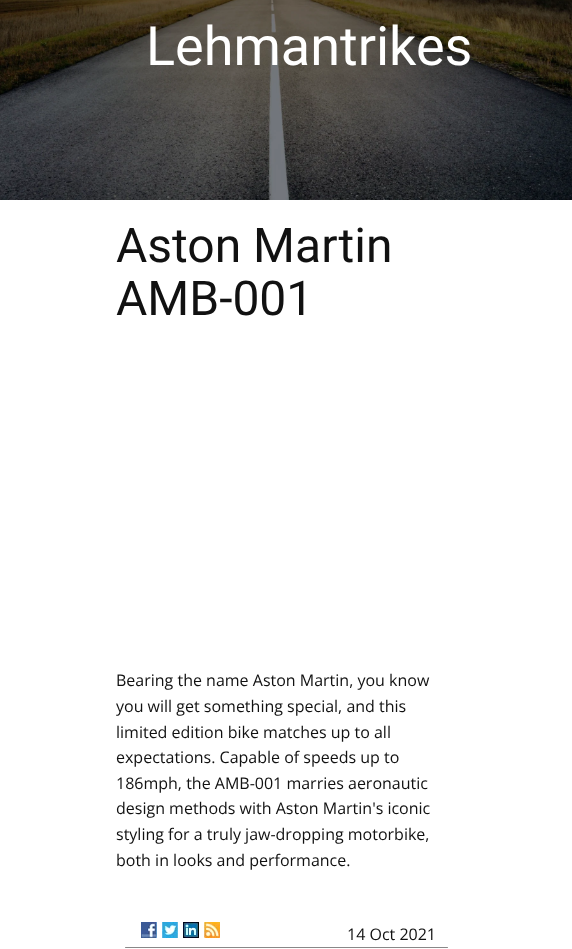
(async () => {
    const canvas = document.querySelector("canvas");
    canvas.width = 572;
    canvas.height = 949;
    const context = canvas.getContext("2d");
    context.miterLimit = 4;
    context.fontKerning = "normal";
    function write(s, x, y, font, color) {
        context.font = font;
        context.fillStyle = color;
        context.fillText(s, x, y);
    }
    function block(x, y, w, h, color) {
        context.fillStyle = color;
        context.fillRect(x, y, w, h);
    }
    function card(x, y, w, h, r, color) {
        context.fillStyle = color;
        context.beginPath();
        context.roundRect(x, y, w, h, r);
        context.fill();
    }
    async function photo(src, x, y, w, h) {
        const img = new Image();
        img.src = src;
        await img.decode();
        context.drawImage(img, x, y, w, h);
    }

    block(0, 0, 572, 949, "rgb(255, 255, 255)");
    await photo("media/1.png", 0, 0, 572, 200);
    write("Lehmantrikes", 146, 65, "54px Roboto", "rgb(255, 255, 255)");
    write("Aston Martin", 116, 262, "48px Roboto", "rgb(17, 17, 17)");
    write("AMB-001", 116, 315, "48px Roboto", "rgb(17, 17, 17)");
    write("Bearing the name Aston Martin, you know", 116, 686, "16px Open Sans", "rgb(17, 17, 17)");
    write("you will get something special, and this", 116, 712, "16px Open Sans", "rgb(17, 17, 17)");
    write("limited edition bike matches up to all", 116, 738, "16px Open Sans", "rgb(17, 17, 17)");
    write("expectations. Capable of speeds up to", 116, 763, "16px Open Sans", "rgb(17, 17, 17)");
    write("186mph, the AMB-001 marries aeronautic", 116, 789, "16px Open Sans", "rgb(17, 17, 17)");
    write("design methods with Aston Martin's iconic", 116, 814, "16px Open Sans", "rgb(17, 17, 17)");
    write("styling for a truly jaw-dropping motorbike,", 116, 840, "16px Open Sans", "rgb(17, 17, 17)");
    write("both in looks and performance.", 116, 866, "16px Open Sans", "rgb(17, 17, 17)");
    await photo("media/2.png", 141, 922, 16, 16);
    await photo("media/3.png", 162, 922, 16, 16);
    await photo("media/4.png", 183, 922, 16, 16);
    await photo("media/5.png", 204, 922, 16, 16);
    write("14 Oct 2021", 347, 940, "16px Open Sans", "rgb(17, 17, 17)");
    card(125, 947, 323, 1, 0.5, "rgb(136, 136, 136)");
})();
